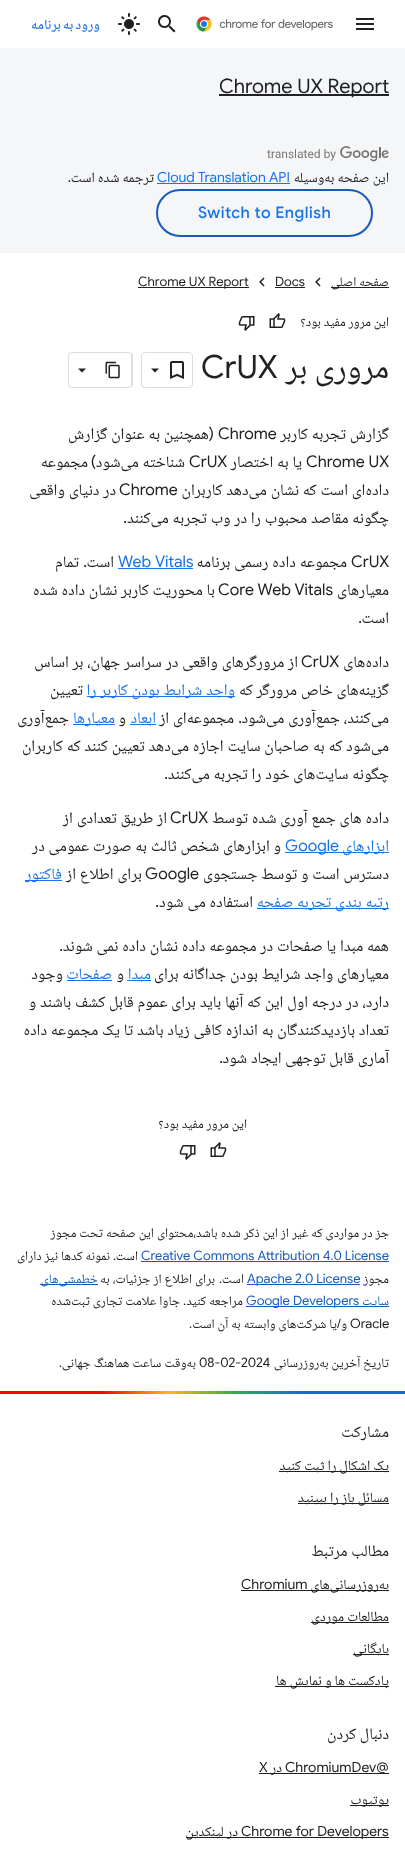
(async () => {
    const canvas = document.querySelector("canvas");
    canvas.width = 405;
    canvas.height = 1858;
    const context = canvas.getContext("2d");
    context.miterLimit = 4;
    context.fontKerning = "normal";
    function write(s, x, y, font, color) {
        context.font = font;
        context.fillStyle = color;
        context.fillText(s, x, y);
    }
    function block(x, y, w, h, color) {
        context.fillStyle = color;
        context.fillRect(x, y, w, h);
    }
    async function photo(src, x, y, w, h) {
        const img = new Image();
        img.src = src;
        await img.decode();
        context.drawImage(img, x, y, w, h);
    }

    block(0, 0, 405, 1858, "rgb(255, 255, 255)");
    await photo("media/1.png", 356, 18, 18, 12);
    await photo("media/2.png", 196, 16, 137, 16);
    await photo("media/3.png", 158, 15, 18, 18);
    await photo("media/4.png", 118, 13, 22, 22);
    context.save();
    context.beginPath();
    context.roundRect(16, 6, 87, 36, 18);
    context.clip();
    context.letterSpacing = "0.5px";
    context.wordSpacing = "-1px";
    context.direction = "rtl";
    write("ورود به برنامه", 100, 29, "500 14px Noto Naskh Arabic", "rgb(26, 115, 232)");
    context.restore();
    block(0, 48, 405, 205, "rgb(245, 246, 247)");
    block(219, 94, 170, 2, "rgb(32, 33, 36)");
    write("Chrome UX Report", 219, 93, "20px Google Sans", "rgb(32, 33, 36)");
    await photo("media/5.png", 267, 146, 122, 16);
    context.direction = "rtl";
    write("این صفحه به‌وسیله", 389, 182, "14px Noto Naskh Arabic", "rgb(32, 33, 36)");
    context.direction = "ltr";
    write("Cloud Translation API", 157, 182, "14px Google Sans", "rgb(26, 115, 232)");
    block(157, 183, 133, 1, "rgb(26, 115, 232)");
    context.direction = "rtl";
    write("ترجمه شده است", 154, 182, "14px Noto Naskh Arabic", "rgb(32, 33, 36)");
    write(".", 71, 182, "14px Google Sans", "rgb(32, 33, 36)");
    context.beginPath();
    context.roundRect(157, 190, 215, 46, 23);
    context.strokeStyle = "rgb(24, 90, 188)";
    context.lineWidth = 2;
    context.stroke();
    context.letterSpacing = "0.5px";
    context.direction = "ltr";
    write("Switch to English", 198, 218, "500 16px Google Sans", "rgb(26, 115, 232)");
    block(331, 287, 58, 1, "rgb(32, 33, 36)");
    context.letterSpacing = "0px";
    context.direction = "rtl";
    write("صفحه اصلی", 389, 286, "13px Noto Naskh Arabic", "rgb(32, 33, 36)");
    await photo("media/6.png", 315, 277, 6, 10);
    context.direction = "ltr";
    write("Docs", 275, 286, "13px Google Sans", "rgb(32, 33, 36)");
    block(275, 287, 30, 1, "rgb(32, 33, 36)");
    await photo("media/6.png", 259, 277, 6, 10);
    block(138, 287, 111, 1, "rgb(32, 33, 36)");
    write("Chrome UX Report", 138, 286, "13px Google Sans", "rgb(32, 33, 36)");
    context.wordSpacing = "0.1px";
    context.direction = "rtl";
    write("این مرور مفید بود؟", 389, 326, "13px Noto Naskh Arabic", "rgb(32, 33, 36)");
    await photo("media/7.png", 269, 313, 17, 15);
    await photo("media/8.png", 238, 316, 17, 15);
    context.wordSpacing = "0px";
    write("مروری بر", 389, 378, "32px Noto Naskh Arabic", "rgb(32, 33, 36)");
    context.direction = "ltr";
    write("CrUX", 201, 378, "32px Google Sans", "rgb(32, 33, 36)");
    context.beginPath();
    context.roundRect(141.5, 352.5, 51, 35, 3.5);
    context.strokeStyle = "rgb(218, 220, 224)";
    context.lineWidth = 1;
    context.stroke();
    await photo("media/9.png", 170, 361, 14, 18);
    context.beginPath();
    context.moveTo(151, 368.5);
    context.lineTo(159, 368.5);
    context.lineTo(155, 372.5);
    context.closePath();
    context.fill();
    context.beginPath();
    context.roundRect(68.5, 352.5, 64, 35, 3.5);
    context.stroke();
    block(131, 353, 1, 34, "rgb(218, 220, 224)");
    await photo("media/10.png", 105, 361, 15, 18);
    context.fillStyle = "rgb(32, 33, 36)";
    context.beginPath();
    context.moveTo(78, 368.5);
    context.lineTo(86, 368.5);
    context.lineTo(82, 372.5);
    context.closePath();
    context.fill();
    context.wordSpacing = "0.25px";
    context.direction = "rtl";
    write("گزارش تجربه کاربر", 389, 439, "16px Noto Naskh Arabic", "rgb(32, 33, 36)");
    context.wordSpacing = "0px";
    context.direction = "ltr";
    write("Chrome", 218, 439, "16px Google Sans", "rgb(32, 33, 36)");
    context.direction = "rtl";
    write("(", 214, 439, "16px Google Sans", "rgb(32, 33, 36)");
    context.wordSpacing = "0.25px";
    write("همچنین به عنوان گزارش", 209, 439, "16px Noto Naskh Arabic", "rgb(32, 33, 36)");
    context.wordSpacing = "0px";
    context.direction = "ltr";
    write("Chrome UX", 306, 467, "16px Google Sans", "rgb(32, 33, 36)");
    context.wordSpacing = "0.25px";
    context.direction = "rtl";
    write("یا به اختصار", 302, 467, "16px Noto Naskh Arabic", "rgb(32, 33, 36)");
    context.wordSpacing = "0px";
    context.direction = "ltr";
    write("CrUX", 189, 467, "16px Google Sans", "rgb(32, 33, 36)");
    context.wordSpacing = "0.25px";
    context.direction = "rtl";
    write("شناخته می‌شود", 185, 467, "16px Noto Naskh Arabic", "rgb(32, 33, 36)");
    context.wordSpacing = "0px";
    write(")", 96, 467, "16px Google Sans", "rgb(32, 33, 36)");
    write("مجموعه", 88, 467, "16px Noto Naskh Arabic", "rgb(32, 33, 36)");
    context.wordSpacing = "0.25px";
    write("داده‌ای است که نشان می‌دهد کاربران", 389, 495, "16px Noto Naskh Arabic", "rgb(32, 33, 36)");
    context.wordSpacing = "0px";
    context.direction = "ltr";
    write("Chrome", 119, 495, "16px Google Sans", "rgb(32, 33, 36)");
    context.wordSpacing = "0.25px";
    context.direction = "rtl";
    write("در دنیای واقعی", 116, 495, "16px Noto Naskh Arabic", "rgb(32, 33, 36)");
    write("چگونه مقاصد محبوب را در وب تجربه می‌کنند", 389, 523, "16px Noto Naskh Arabic", "rgb(32, 33, 36)");
    context.wordSpacing = "0px";
    write(".", 127, 523, "16px Google Sans", "rgb(32, 33, 36)");
    context.direction = "ltr";
    write("CrUX", 351, 567, "16px Google Sans", "rgb(32, 33, 36)");
    context.wordSpacing = "0.25px";
    context.direction = "rtl";
    write("مجموعه داده رسمی برنامه", 347, 567, "16px Noto Naskh Arabic", "rgb(32, 33, 36)");
    context.wordSpacing = "0px";
    context.direction = "ltr";
    write("Web Vitals", 118, 567, "16px Google Sans", "rgb(26, 115, 232)");
    block(118, 568, 75, 1, "rgb(26, 115, 232)");
    context.direction = "rtl";
    write("است", 114, 567, "16px Noto Naskh Arabic", "rgb(32, 33, 36)");
    write(".", 87, 567, "16px Google Sans", "rgb(32, 33, 36)");
    write("تمام", 79, 567, "16px Noto Naskh Arabic", "rgb(32, 33, 36)");
    write("معیارهای", 389, 595, "16px Noto Naskh Arabic", "rgb(32, 33, 36)");
    context.direction = "ltr";
    write("Core Web Vitals", 218, 595, "16px Google Sans", "rgb(32, 33, 36)");
    context.wordSpacing = "0.25px";
    context.direction = "rtl";
    write("با محوریت کاربر نشان داده شده", 215, 595, "16px Noto Naskh Arabic", "rgb(32, 33, 36)");
    context.wordSpacing = "0px";
    write("است", 389, 623, "16px Noto Naskh Arabic", "rgb(32, 33, 36)");
    write(".", 362, 623, "16px Google Sans", "rgb(32, 33, 36)");
    write("داده‌های", 389, 667, "16px Noto Naskh Arabic", "rgb(32, 33, 36)");
    context.direction = "ltr";
    write("CrUX", 301, 667, "16px Google Sans", "rgb(32, 33, 36)");
    context.wordSpacing = "0.25px";
    context.direction = "rtl";
    write("از مرورگرهای واقعی در سراسر جهان، بر اساس", 298, 667, "16px Noto Naskh Arabic", "rgb(32, 33, 36)");
    write("گزینه‌های خاص مرورگر که", 389, 695, "16px Noto Naskh Arabic", "rgb(32, 33, 36)");
    block(87, 696, 148, 1, "rgb(26, 115, 232)");
    write("واجد شرایط بودن کاربر را", 235, 695, "16px Noto Naskh Arabic", "rgb(26, 115, 232)");
    context.wordSpacing = "0px";
    write("تعیین", 83, 695, "16px Noto Naskh Arabic", "rgb(32, 33, 36)");
    context.wordSpacing = "0.25px";
    write("می‌کنند، جمع‌آوری می‌شود", 389, 723, "16px Noto Naskh Arabic", "rgb(32, 33, 36)");
    context.wordSpacing = "0px";
    write(".", 242, 723, "16px Google Sans", "rgb(32, 33, 36)");
    context.wordSpacing = "0.25px";
    write("مجموعه‌ای از", 234, 723, "16px Noto Naskh Arabic", "rgb(32, 33, 36)");
    block(130, 724, 26, 1, "rgb(26, 115, 232)");
    context.wordSpacing = "0px";
    write("ابعاد", 156, 723, "16px Noto Naskh Arabic", "rgb(26, 115, 232)");
    write("و", 126, 723, "16px Noto Naskh Arabic", "rgb(32, 33, 36)");
    block(73, 724, 42, 1, "rgb(26, 115, 232)");
    write("معیارها", 115, 723, "16px Noto Naskh Arabic", "rgb(26, 115, 232)");
    write("جمع‌آوری", 69, 723, "16px Noto Naskh Arabic", "rgb(32, 33, 36)");
    context.wordSpacing = "0.25px";
    write("می‌شود که به صاحبان سایت اجازه می‌دهد تعیین کنند که کاربران", 389, 751, "16px Noto Naskh Arabic", "rgb(32, 33, 36)");
    write("چگونه سایت‌های خود را تجربه می‌کنند", 389, 779, "16px Noto Naskh Arabic", "rgb(32, 33, 36)");
    context.wordSpacing = "0px";
    write(".", 168, 779, "16px Google Sans", "rgb(32, 33, 36)");
    context.wordSpacing = "0.25px";
    write("داده های جمع آوری شده توسط", 389, 823, "16px Noto Naskh Arabic", "rgb(32, 33, 36)");
    context.wordSpacing = "0px";
    context.direction = "ltr";
    write("CrUX", 170, 823, "16px Google Sans", "rgb(32, 33, 36)");
    context.wordSpacing = "0.25px";
    context.direction = "rtl";
    write("از طریق تعدادی از", 167, 823, "16px Noto Naskh Arabic", "rgb(32, 33, 36)");
    block(285, 852, 104, 1, "rgb(26, 115, 232)");
    context.wordSpacing = "0px";
    write("ابزارهای", 389, 851, "16px Noto Naskh Arabic", "rgb(26, 115, 232)");
    context.direction = "ltr";
    write("Google", 285, 851, "16px Google Sans", "rgb(26, 115, 232)");
    context.wordSpacing = "0.25px";
    context.direction = "rtl";
    write("و ابزارهای شخص ثالث به صورت عمومی در", 281, 851, "16px Noto Naskh Arabic", "rgb(32, 33, 36)");
    write("دسترس است و توسط جستجوی", 389, 879, "16px Noto Naskh Arabic", "rgb(32, 33, 36)");
    context.wordSpacing = "0px";
    context.direction = "ltr";
    write("Google", 145, 879, "16px Google Sans", "rgb(32, 33, 36)");
    context.wordSpacing = "0.25px";
    context.direction = "rtl";
    write("برای اطلاع از", 142, 879, "16px Noto Naskh Arabic", "rgb(32, 33, 36)");
    block(25, 880, 37, 1, "rgb(26, 115, 232)");
    context.wordSpacing = "0px";
    write("فاکتور", 62, 879, "16px Noto Naskh Arabic", "rgb(26, 115, 232)");
    block(257, 908, 132, 1, "rgb(26, 115, 232)");
    context.wordSpacing = "0.25px";
    write("رتبه بندی تجربه صفحه", 389, 907, "16px Noto Naskh Arabic", "rgb(26, 115, 232)");
    write("استفاده می شود", 253, 907, "16px Noto Naskh Arabic", "rgb(32, 33, 36)");
    context.wordSpacing = "0px";
    write(".", 159, 907, "16px Google Sans", "rgb(32, 33, 36)");
    context.wordSpacing = "0.25px";
    write("همه مبدا یا صفحات در مجموعه داده نشان داده نمی شوند", 389, 951, "16px Noto Naskh Arabic", "rgb(32, 33, 36)");
    context.wordSpacing = "0px";
    write(".", 63, 951, "16px Google Sans", "rgb(32, 33, 36)");
    context.wordSpacing = "0.25px";
    write("معیارهای واجد شرایط بودن جداگانه برای", 389, 979, "16px Noto Naskh Arabic", "rgb(32, 33, 36)");
    block(127, 980, 24, 1, "rgb(26, 115, 232)");
    context.wordSpacing = "0px";
    write("مبدا", 151, 979, "16px Noto Naskh Arabic", "rgb(26, 115, 232)");
    write("و", 124, 979, "16px Noto Naskh Arabic", "rgb(32, 33, 36)");
    write("صفحات", 112, 979, "16px Noto Naskh Arabic", "rgb(26, 115, 232)");
    block(67, 980, 45, 1, "rgb(26, 115, 232)");
    write("وجود", 63, 979, "16px Noto Naskh Arabic", "rgb(32, 33, 36)");
    context.wordSpacing = "0.25px";
    write("دارد، در درجه اول این که آنها باید برای عموم قابل کشف باشند و", 389, 1007, "16px Noto Naskh Arabic", "rgb(32, 33, 36)");
    write("تعداد بازدیدکنندگان به اندازه کافی زیاد باشد تا یک مجموعه داده", 389, 1035, "16px Noto Naskh Arabic", "rgb(32, 33, 36)");
    write("آماری قابل توجهی ایجاد شود", 389, 1063, "16px Noto Naskh Arabic", "rgb(32, 33, 36)");
    context.wordSpacing = "0px";
    write(".", 223, 1063, "16px Google Sans", "rgb(32, 33, 36)");
    context.wordSpacing = "0.1px";
    write("این مرور مفید بود؟", 247, 1128, "13px Noto Naskh Arabic", "rgb(32, 33, 36)");
    await photo("media/7.png", 210, 1142, 17, 15);
    await photo("media/8.png", 179, 1145, 17, 15);
    write("جز در مواردی که غیر از این ذکر شده باشد،‌محتوای این صفحه تحت مجوز", 389, 1237, "13px Noto Naskh Arabic", "rgb(32, 33, 36)");
    context.wordSpacing = "0px";
    context.direction = "ltr";
    write("Creative Commons Attribution 4.0 License", 141, 1260, "13px Google Sans", "rgb(24, 90, 188)");
    block(141, 1261, 248, 1, "rgb(24, 90, 188)");
    context.direction = "rtl";
    write("است", 138, 1260, "13px Noto Naskh Arabic", "rgb(32, 33, 36)");
    write(".", 116, 1260, "13px Google Sans", "rgb(32, 33, 36)");
    context.wordSpacing = "0.1px";
    write("نمونه کدها نیز دارای", 110, 1260, "13px Noto Naskh Arabic", "rgb(32, 33, 36)");
    context.wordSpacing = "0px";
    write("مجوز", 389, 1283, "13px Noto Naskh Arabic", "rgb(32, 33, 36)");
    block(247, 1284, 113, 1, "rgb(24, 90, 188)");
    context.direction = "ltr";
    write("Apache 2.0 License", 247, 1283, "13px Google Sans", "rgb(24, 90, 188)");
    context.direction = "rtl";
    write("است", 244, 1283, "13px Noto Naskh Arabic", "rgb(32, 33, 36)");
    write(".", 222, 1283, "13px Google Sans", "rgb(32, 33, 36)");
    context.wordSpacing = "0.1px";
    write("برای اطلاع از جزئیات، به", 215, 1283, "13px Noto Naskh Arabic", "rgb(32, 33, 36)");
    block(40, 1284, 58, 1, "rgb(24, 90, 188)");
    context.wordSpacing = "0px";
    write("خطمشی‌های", 98, 1283, "13px Noto Naskh Arabic", "rgb(24, 90, 188)");
    block(246, 1306, 143, 1, "rgb(24, 90, 188)");
    write("سایت", 389, 1305, "13px Noto Naskh Arabic", "rgb(24, 90, 188)");
    context.direction = "ltr";
    write("Google Developers", 246, 1305, "13px Google Sans", "rgb(24, 90, 188)");
    context.wordSpacing = "0.1px";
    context.direction = "rtl";
    write("مراجعه کنید", 243, 1305, "13px Noto Naskh Arabic", "rgb(32, 33, 36)");
    context.wordSpacing = "0px";
    write(".", 186, 1305, "13px Google Sans", "rgb(32, 33, 36)");
    context.wordSpacing = "0.1px";
    write("جاوا علامت تجاری ثبت‌شده", 180, 1305, "13px Noto Naskh Arabic", "rgb(32, 33, 36)");
    context.wordSpacing = "0px";
    context.direction = "ltr";
    write("Oracle", 350, 1328, "13px Google Sans", "rgb(32, 33, 36)");
    context.direction = "rtl";
    write("و", 347, 1328, "13px Noto Naskh Arabic", "rgb(32, 33, 36)");
    write("/", 341, 1328, "13px Google Sans", "rgb(32, 33, 36)");
    context.wordSpacing = "0.1px";
    write("یا شرکت‌های وابسته به آن است", 337, 1328, "13px Noto Naskh Arabic", "rgb(32, 33, 36)");
    context.wordSpacing = "0px";
    write(".", 192, 1328, "13px Google Sans", "rgb(32, 33, 36)");
    write("تاریخ آخرین به‌روزرسانی", 389, 1367, "13px Noto Naskh Arabic", "rgb(32, 33, 36)");
    context.direction = "ltr";
    write("08-02-2024", 199, 1367, "13px Google Sans", "rgb(32, 33, 36)");
    context.wordSpacing = "0.1px";
    context.direction = "rtl";
    write("به‌وقت ساعت هماهنگ جهانی", 196, 1367, "13px Noto Naskh Arabic", "rgb(32, 33, 36)");
    context.wordSpacing = "0px";
    write(".", 62, 1367, "13px Google Sans", "rgb(32, 33, 36)");
    await photo("media/11.png", 0, 1391, 405, 3);
    write("مشارکت", 389, 1437, "16px Noto Naskh Arabic", "rgb(32, 33, 36)");
    block(279, 1471, 110, 1, "rgb(32, 33, 36)");
    write("یک اشکال را ثبت کنید", 389, 1470, "14px Noto Naskh Arabic", "rgb(32, 33, 36)");
    block(298, 1503, 91, 1, "rgb(32, 33, 36)");
    write("مسائل باز را ببینید", 389, 1502, "14px Noto Naskh Arabic", "rgb(32, 33, 36)");
    write("مطالب مرتبط", 389, 1556, "16px Noto Naskh Arabic", "rgb(32, 33, 36)");
    block(241, 1590, 148, 1, "rgb(32, 33, 36)");
    write("به‌روزرسانی‌های", 389, 1589, "14px Noto Naskh Arabic", "rgb(32, 33, 36)");
    context.direction = "ltr";
    write("Chromium", 241, 1589, "14px Google Sans", "rgb(32, 33, 36)");
    block(311, 1622, 78, 1, "rgb(32, 33, 36)");
    context.direction = "rtl";
    write("مطالعات موردی", 389, 1621, "14px Noto Naskh Arabic", "rgb(32, 33, 36)");
    block(353, 1654, 36, 1, "rgb(32, 33, 36)");
    write("بایگانی", 389, 1653, "14px Noto Naskh Arabic", "rgb(32, 33, 36)");
    block(275, 1686, 114, 1, "rgb(32, 33, 36)");
    write("پادکست ها و نمایش ها", 389, 1685, "14px Noto Naskh Arabic", "rgb(32, 33, 36)");
    write("دنبال کردن", 389, 1739, "16px Noto Naskh Arabic", "rgb(32, 33, 36)");
    block(259, 1773, 130, 1, "rgb(32, 33, 36)");
    context.direction = "ltr";
    write("ChromiumDev@", 285, 1772, "14px Google Sans", "rgb(32, 33, 36)");
    context.direction = "rtl";
    write("در", 282, 1772, "14px Noto Naskh Arabic", "rgb(32, 33, 36)");
    context.direction = "ltr";
    write("X", 259, 1772, "14px Google Sans", "rgb(32, 33, 36)");
    block(350, 1805, 39, 1, "rgb(32, 33, 36)");
    context.direction = "rtl";
    write("یوتیوب", 389, 1804, "14px Noto Naskh Arabic", "rgb(32, 33, 36)");
    block(186, 1837, 203, 1, "rgb(32, 33, 36)");
    context.direction = "ltr";
    write("Chrome for Developers", 241, 1836, "14px Google Sans", "rgb(32, 33, 36)");
    context.direction = "rtl";
    write("در لینکدین", 238, 1836, "14px Noto Naskh Arabic", "rgb(32, 33, 36)");
})();
